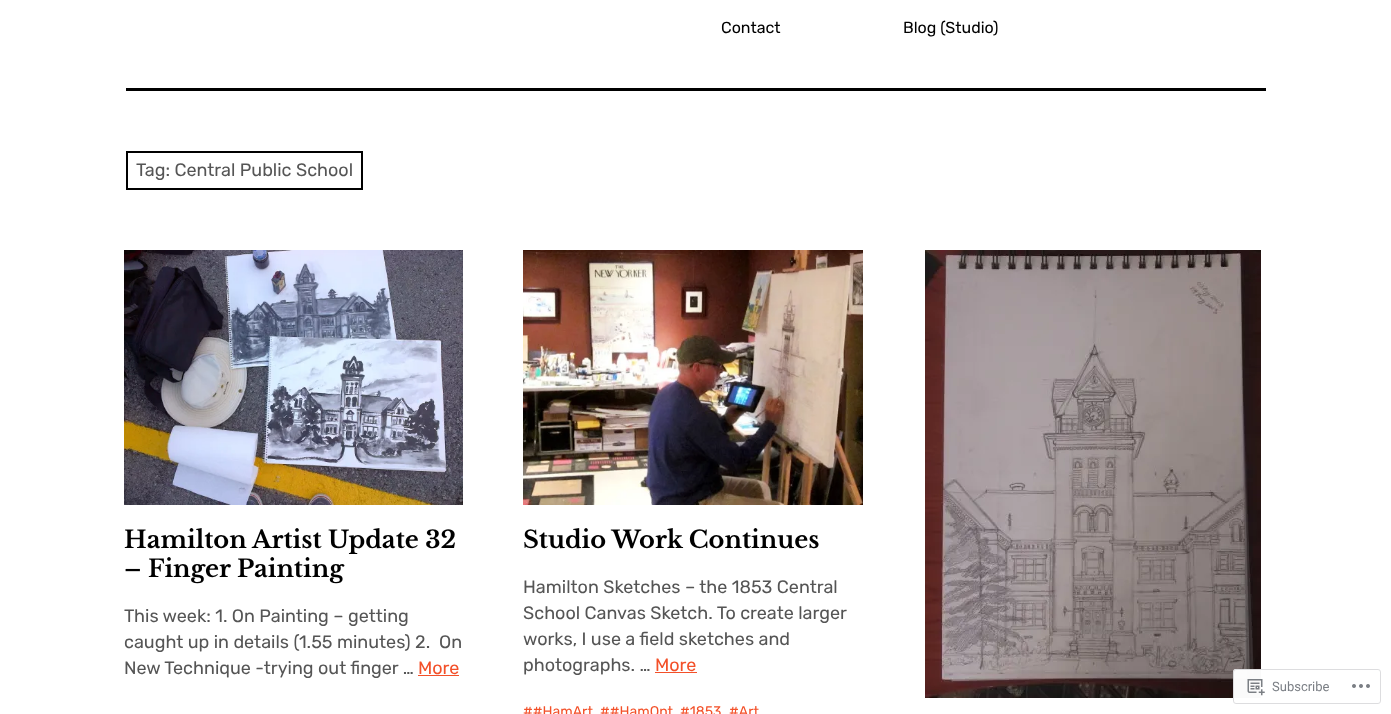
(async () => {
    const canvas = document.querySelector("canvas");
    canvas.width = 1391;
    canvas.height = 714;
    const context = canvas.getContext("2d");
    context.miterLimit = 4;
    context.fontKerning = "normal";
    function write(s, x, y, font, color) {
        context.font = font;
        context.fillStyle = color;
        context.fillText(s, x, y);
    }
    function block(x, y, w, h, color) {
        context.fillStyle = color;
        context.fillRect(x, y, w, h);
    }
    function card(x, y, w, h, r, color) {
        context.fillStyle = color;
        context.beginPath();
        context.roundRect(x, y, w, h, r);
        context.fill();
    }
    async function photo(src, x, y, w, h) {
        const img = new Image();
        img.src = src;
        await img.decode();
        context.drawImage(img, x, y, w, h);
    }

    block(0, 0, 1391, 714, "rgb(255, 255, 255)");
    write("Contact", 721, 33, "16px Rubik", "rgb(0, 0, 0)");
    write("Blog (Studio)", 903, 33, "16px Rubik", "rgb(0, 0, 0)");
    block(126, 88, 1140, 3, "rgb(0, 0, 0)");
    context.strokeStyle = "rgb(0, 0, 0)";
    context.lineWidth = 2;
    context.strokeRect(127, 152, 235, 37);
    write("Tag: Central Public School", 136, 176, "18px Rubik", "rgb(85, 85, 85)");
    await photo("media/1.png", 124, 250, 339, 255);
    write("Hamilton Artist Update 32", 124, 548, "bold 24px Libre Baskerville", "rgb(0, 0, 0)");
    write("– Finger Painting", 124, 577, "bold 24px Libre Baskerville", "rgb(0, 0, 0)");
    write("This week: 1. On Painting – getting", 124, 622, "18px Rubik", "rgb(85, 85, 85)");
    write("caught up in details (1.55 minutes) 2.  On", 124, 648, "18px Rubik", "rgb(85, 85, 85)");
    write("New Technique -trying out finger …", 124, 674, "18px Rubik", "rgb(85, 85, 85)");
    write("More", 418, 674, "18px Rubik", "rgb(243, 80, 41)");
    block(418, 675, 41, 1, "rgb(243, 80, 41)");
    await photo("media/2.png", 523, 250, 340, 255);
    write("Studio Work Continues", 523, 548, "bold 24px Libre Baskerville", "rgb(0, 0, 0)");
    write("Hamilton Sketches – the 1853 Central", 523, 593, "18px Rubik", "rgb(85, 85, 85)");
    write("School Canvas Sketch. To create larger", 523, 619, "18px Rubik", "rgb(85, 85, 85)");
    write("works, I use a field sketches and", 523, 645, "18px Rubik", "rgb(85, 85, 85)");
    write("photographs. …", 523, 671, "18px Rubik", "rgb(85, 85, 85)");
    write("More", 655, 671, "18px Rubik", "rgb(243, 80, 41)");
    block(655, 672, 42, 1, "rgb(243, 80, 41)");
    write("##HamArt", 523, 716, "14px Rubik", "rgb(243, 80, 41)");
    write("##HamOnt", 600, 716, "14px Rubik", "rgb(243, 80, 41)");
    write("#1853", 680, 716, "14px Rubik", "rgb(243, 80, 41)");
    write("#Art", 729, 716, "14px Rubik", "rgb(243, 80, 41)");
    await photo("media/3.png", 925, 250, 336, 448);
    card(1233, 669, 148, 35, 3, "rgba(255, 255, 255, 0.98)");
    context.beginPath();
    context.roundRect(1233.5, 669.5, 147, 34, 2.5);
    context.strokeStyle = "rgba(220, 220, 222, 0.98)";
    context.lineWidth = 1;
    context.stroke();
    await photo("media/4.png", 1247, 679, 18, 17);
    write("Subscribe", 1272, 691, "13px Roboto", "rgb(123, 127, 133)");
    await photo("media/5.png", 1352, 684, 18, 4);
})();
